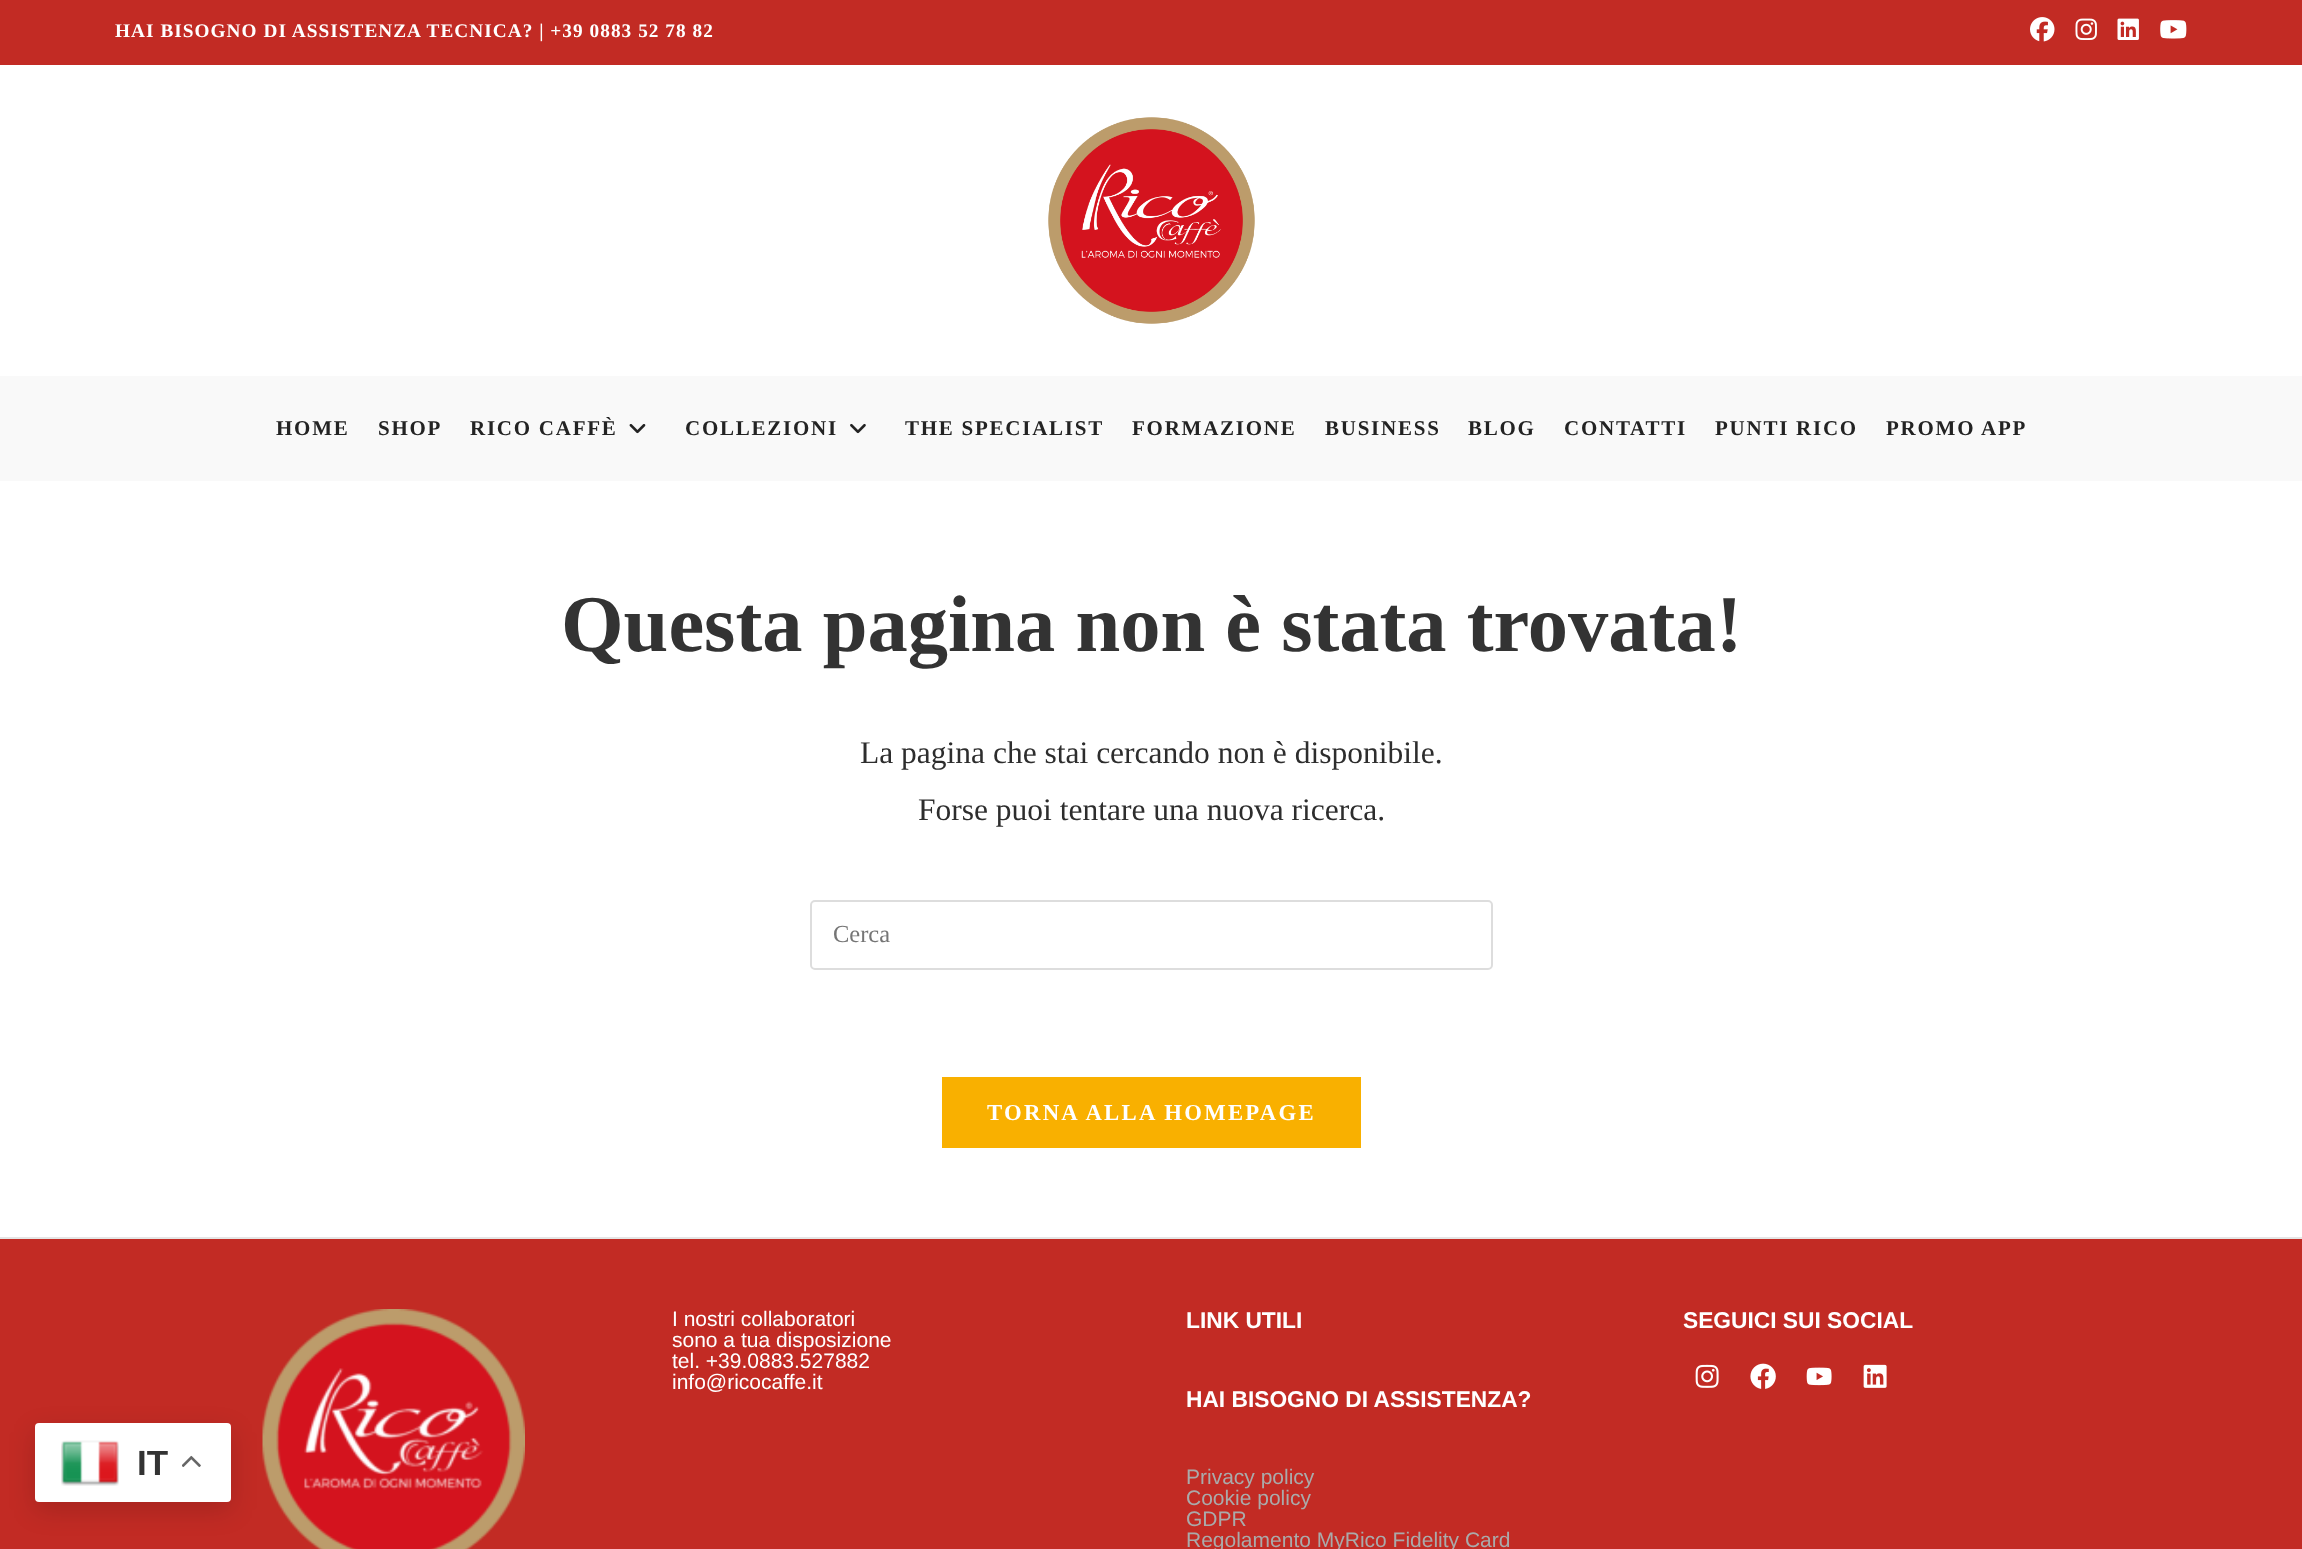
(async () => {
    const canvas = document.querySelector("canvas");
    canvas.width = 2302;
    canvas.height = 1549;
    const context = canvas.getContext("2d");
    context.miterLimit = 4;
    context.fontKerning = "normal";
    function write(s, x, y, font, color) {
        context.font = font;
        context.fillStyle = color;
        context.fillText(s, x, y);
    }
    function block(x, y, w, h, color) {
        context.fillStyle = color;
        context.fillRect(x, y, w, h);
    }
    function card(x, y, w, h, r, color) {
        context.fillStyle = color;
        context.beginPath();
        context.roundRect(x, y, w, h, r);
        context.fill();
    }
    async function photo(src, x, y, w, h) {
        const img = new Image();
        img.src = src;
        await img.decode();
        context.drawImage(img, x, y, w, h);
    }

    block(0, 0, 2302, 1549, "rgb(255, 255, 255)");
    block(0, 0, 2302, 65, "rgb(194, 43, 36)");
    context.letterSpacing = "1.05px";
    write("HAI BISOGNO DI ASSISTENZA TECNICA? | +39 0883 52 78 82", 115, 37, "bold 19.25px Liberation Serif", "rgb(255, 255, 255)");
    await photo("media/1.png", 2030, 17, 25, 25);
    await photo("media/2.png", 2075, 18, 22, 22);
    await photo("media/3.png", 2117, 18, 22, 22);
    await photo("media/4.png", 2160, 20, 27, 19);
    await photo("media/5.png", 1048, 117, 207, 207);
    block(0, 376, 2302, 105, "rgb(249, 249, 249)");
    context.letterSpacing = "1.75px";
    write("HOME", 276, 435, "bold 21px Liberation Serif", "rgb(35, 35, 35)");
    write("SHOP", 378, 435, "bold 21px Liberation Serif", "rgb(35, 35, 35)");
    write("RICO CAFFÈ", 470, 435, "bold 21px Liberation Serif", "rgb(35, 35, 35)");
    await photo("media/6.png", 629, 424, 17, 10);
    write("COLLEZIONI", 685, 435, "bold 21px Liberation Serif", "rgb(35, 35, 35)");
    await photo("media/7.png", 850, 423, 16, 11);
    write("THE SPECIALIST", 905, 435, "bold 21px Liberation Serif", "rgb(35, 35, 35)");
    write("FORMAZIONE", 1132, 435, "bold 21px Liberation Serif", "rgb(35, 35, 35)");
    write("BUSINESS", 1325, 435, "bold 21px Liberation Serif", "rgb(35, 35, 35)");
    write("BLOG", 1468, 435, "bold 21px Liberation Serif", "rgb(35, 35, 35)");
    write("CONTATTI", 1564, 435, "bold 21px Liberation Serif", "rgb(35, 35, 35)");
    write("PUNTI RICO", 1715, 435, "bold 21px Liberation Serif", "rgb(35, 35, 35)");
    write("PROMO APP", 1886, 435, "bold 21px Liberation Serif", "rgb(35, 35, 35)");
    context.letterSpacing = "0px";
    write("Questa pagina non è stata trovata!", 561, 651, "bold 80.5px Liberation Serif", "rgb(51, 51, 51)");
    write("La pagina che stai cercando non è disponibile.", 860, 763, "31.5px Liberation Serif", "rgb(45, 45, 45)");
    write("Forse puoi tentare una nuova ricerca.", 918, 820, "31.5px Liberation Serif", "rgb(45, 45, 45)");
    context.beginPath();
    context.roundRect(811, 901, 681, 68, 4);
    context.strokeStyle = "rgb(221, 221, 221)";
    context.lineWidth = 2;
    context.stroke();
    write("Cerca", 833, 942, "24.5px Liberation Serif", "rgb(117, 117, 117)");
    block(942, 1077, 419, 71, "rgb(249, 176, 0)");
    context.letterSpacing = "2.25px";
    write("TORNA ALLA HOMEPAGE", 987, 1120, "bold 22.75px Liberation Serif", "rgb(255, 255, 255)");
    block(0, 1239, 2302, 310, "rgb(194, 43, 36)");
    block(0, 1237, 2302, 2, "rgb(229, 229, 229)");
    await photo("media/8.png", 262, 1309, 263, 240);
    context.letterSpacing = "0px";
    write("I nostri collaboratori", 672, 1326, "21px Liberation Sans", "rgb(255, 255, 255)");
    write("sono a tua disposizione", 672, 1347, "21px Liberation Sans", "rgb(255, 255, 255)");
    write("tel. +39.0883.527882", 672, 1368, "21px Liberation Sans", "rgb(255, 255, 255)");
    write("info@ricocaffe.it", 672, 1389, "21px Liberation Sans", "rgb(255, 255, 255)");
    write("LINK UTILI", 1186, 1328, "bold 22.75px Liberation Sans", "rgb(255, 255, 255)");
    write("HAI BISOGNO DI ASSISTENZA?", 1186, 1407, "bold 22.75px Liberation Sans", "rgb(255, 255, 255)");
    write("Privacy policy", 1186, 1484, "21px Liberation Sans", "rgb(170, 170, 170)");
    write("Cookie policy", 1186, 1505, "21px Liberation Sans", "rgb(170, 170, 170)");
    write("GDPR", 1186, 1526, "21px Liberation Sans", "rgb(170, 170, 170)");
    write("Regolamento MyRico Fidelity Card", 1186, 1547, "21px Liberation Sans", "rgb(170, 170, 170)");
    write("SEGUICI SUI SOCIAL", 1683, 1328, "bold 22.75px Liberation Sans", "rgb(255, 255, 255)");
    await photo("media/9.png", 1695, 1364, 24, 24);
    await photo("media/10.png", 1750, 1363, 26, 26);
    await photo("media/11.png", 1806, 1367, 26, 19);
    await photo("media/12.png", 1863, 1364, 24, 24);
    context.fillStyle = "rgba(0, 0, 0, 0.15)";
    context.filter = "blur(13px)";
    context.beginPath();
    context.roundRect(35, 1432, 196, 78, 4);
    context.fill();
    context.filter = "none";
    card(35, 1423, 196, 79, 4, "rgb(255, 255, 255)");
    await photo("media/13.png", 61, 1440, 58, 46);
    write("IT", 137, 1475, "bold 35px Liberation Sans", "rgb(51, 51, 51)");
    await photo("media/14.png", 182, 1455, 19, 12);
})();
